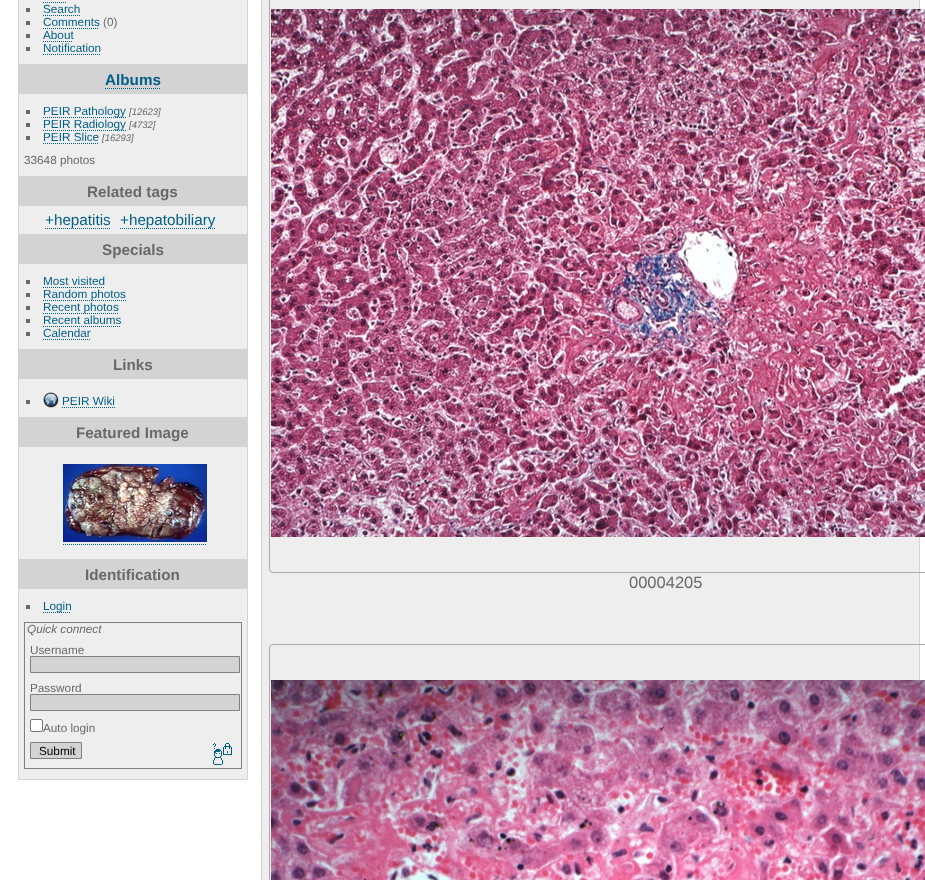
(async () => {
    const canvas = document.querySelector("canvas");
    canvas.width = 925;
    canvas.height = 880;
    const context = canvas.getContext("2d");
    context.miterLimit = 4;
    context.fontKerning = "normal";
    function write(s, x, y, font, color) {
        context.font = font;
        context.fillStyle = color;
        context.fillText(s, x, y);
    }
    function block(x, y, w, h, color) {
        context.fillStyle = color;
        context.fillRect(x, y, w, h);
    }
    async function photo(src, x, y, w, h) {
        const img = new Image();
        img.src = src;
        await img.decode();
        context.drawImage(img, x, y, w, h);
    }

    block(0, 0, 925, 880, "rgb(255, 255, 255)");
    context.fillStyle = "rgb(238, 238, 238)";
    context.beginPath();
    context.rect(18.5, -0.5, 229, 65);
    context.fill();
    context.strokeStyle = "rgb(211, 211, 211)";
    context.stroke();
    context.beginPath();
    context.moveTo(43, 2.5);
    context.lineTo(67, 2.5);
    context.strokeStyle = "rgb(0, 94, 137)";
    context.setLineDash([1, 1]);
    context.stroke();
    block(26, 8, 4, 4, "rgb(105, 105, 105)");
    write("Search", 43, 13, "11.75px Liberation Sans", "rgb(0, 94, 137)");
    context.beginPath();
    context.moveTo(43, 15.5);
    context.lineTo(80, 15.5);
    context.stroke();
    block(26, 21, 4, 4, "rgb(105, 105, 105)");
    write("Comments", 43, 26, "11.75px Liberation Sans", "rgb(0, 94, 137)");
    context.beginPath();
    context.moveTo(43, 28.5);
    context.lineTo(99, 28.5);
    context.stroke();
    write("(0)", 103, 26, "11.75px Liberation Sans", "rgb(105, 105, 105)");
    block(26, 34, 4, 4, "rgb(105, 105, 105)");
    write("About", 43, 39, "11.75px Liberation Sans", "rgb(0, 94, 137)");
    context.beginPath();
    context.moveTo(43, 41.5);
    context.lineTo(73, 41.5);
    context.stroke();
    block(26, 47, 4, 4, "rgb(105, 105, 105)");
    write("Notification", 43, 52, "11.75px Liberation Sans", "rgb(0, 94, 137)");
    context.beginPath();
    context.moveTo(43, 54.5);
    context.lineTo(101, 54.5);
    context.stroke();
    block(19, 94, 228, 82, "rgb(238, 238, 238)");
    context.strokeStyle = "rgb(211, 211, 211)";
    context.setLineDash([]);
    context.strokeRect(18.5, 65.5, 229, 111);
    block(19, 66, 228, 28, "rgb(211, 211, 211)");
    write("Albums", 105, 85, "bold 15.25px Liberation Sans", "rgb(0, 94, 137)");
    context.beginPath();
    context.moveTo(105, 88.5);
    context.lineTo(161, 88.5);
    context.strokeStyle = "rgb(0, 94, 137)";
    context.setLineDash([1, 1]);
    context.stroke();
    block(26, 110, 4, 4, "rgb(105, 105, 105)");
    context.beginPath();
    context.moveTo(43, 117.5);
    context.lineTo(126, 117.5);
    context.stroke();
    write("PEIR Pathology", 43, 115, "11.75px Liberation Sans", "rgb(0, 94, 137)");
    write("[12623]", 129, 115, "italic 9.5px Liberation Sans", "rgb(105, 105, 105)");
    block(26, 123, 4, 4, "rgb(105, 105, 105)");
    context.beginPath();
    context.moveTo(43, 130.5);
    context.lineTo(126, 130.5);
    context.stroke();
    write("PEIR Radiology", 43, 128, "11.75px Liberation Sans", "rgb(0, 94, 137)");
    write("[4732]", 129, 128, "italic 9.5px Liberation Sans", "rgb(105, 105, 105)");
    block(26, 136, 4, 4, "rgb(105, 105, 105)");
    write("PEIR Slice", 43, 141, "11.75px Liberation Sans", "rgb(0, 94, 137)");
    context.beginPath();
    context.moveTo(43, 143.5);
    context.lineTo(99, 143.5);
    context.stroke();
    write("[16293]", 102, 141, "italic 9.5px Liberation Sans", "rgb(105, 105, 105)");
    write("33648 photos", 24, 164, "11.75px Liberation Sans", "rgb(105, 105, 105)");
    block(19, 206, 228, 28, "rgb(238, 238, 238)");
    context.strokeStyle = "rgb(211, 211, 211)";
    context.setLineDash([]);
    context.strokeRect(18.5, 177.5, 229, 57);
    block(19, 178, 228, 28, "rgb(211, 211, 211)");
    write("Related tags", 87, 197, "bold 15.25px Liberation Sans", "rgb(105, 105, 105)");
    context.beginPath();
    context.moveTo(45, 228.5);
    context.lineTo(111, 228.5);
    context.strokeStyle = "rgb(0, 94, 137)";
    context.setLineDash([1, 1]);
    context.stroke();
    write("+hepatitis", 45, 225, "15.25px Liberation Sans", "rgb(0, 94, 137)");
    context.beginPath();
    context.moveTo(120, 228.5);
    context.lineTo(216, 228.5);
    context.stroke();
    write("+hepatobiliary", 120, 225, "15.25px Liberation Sans", "rgb(0, 94, 137)");
    block(19, 264, 228, 85, "rgb(238, 238, 238)");
    context.strokeStyle = "rgb(211, 211, 211)";
    context.setLineDash([]);
    context.strokeRect(18.5, 235.5, 229, 114);
    block(19, 236, 228, 28, "rgb(211, 211, 211)");
    write("Specials", 102, 255, "bold 15.25px Liberation Sans", "rgb(105, 105, 105)");
    block(26, 280, 4, 4, "rgb(105, 105, 105)");
    write("Most visited", 43, 285, "11.75px Liberation Sans", "rgb(0, 94, 137)");
    context.beginPath();
    context.moveTo(43, 287.5);
    context.lineTo(105, 287.5);
    context.strokeStyle = "rgb(0, 94, 137)";
    context.setLineDash([1, 1]);
    context.stroke();
    block(26, 293, 4, 4, "rgb(105, 105, 105)");
    context.beginPath();
    context.moveTo(43, 300.5);
    context.lineTo(126, 300.5);
    context.stroke();
    write("Random photos", 43, 298, "11.75px Liberation Sans", "rgb(0, 94, 137)");
    block(26, 306, 4, 4, "rgb(105, 105, 105)");
    context.beginPath();
    context.moveTo(43, 313.5);
    context.lineTo(118, 313.5);
    context.stroke();
    write("Recent photos", 43, 311, "11.75px Liberation Sans", "rgb(0, 94, 137)");
    block(26, 319, 4, 4, "rgb(105, 105, 105)");
    write("Recent albums", 43, 324, "11.75px Liberation Sans", "rgb(0, 94, 137)");
    context.beginPath();
    context.moveTo(43, 326.5);
    context.lineTo(121, 326.5);
    context.stroke();
    block(26, 332, 4, 4, "rgb(105, 105, 105)");
    write("Calendar", 43, 337, "11.75px Liberation Sans", "rgb(0, 94, 137)");
    context.beginPath();
    context.moveTo(43, 339.5);
    context.lineTo(90, 339.5);
    context.stroke();
    block(19, 379, 228, 38, "rgb(238, 238, 238)");
    context.strokeStyle = "rgb(211, 211, 211)";
    context.setLineDash([]);
    context.strokeRect(18.5, 350.5, 229, 67);
    block(19, 351, 228, 28, "rgb(211, 211, 211)");
    write("Links", 113, 370, "bold 15.25px Liberation Sans", "rgb(105, 105, 105)");
    block(26, 400, 4, 4, "rgb(105, 105, 105)");
    await photo("media/1.png", 43, 392, 16, 16);
    write("PEIR Wiki", 62, 405, "11.75px Liberation Sans", "rgb(0, 94, 137)");
    context.beginPath();
    context.moveTo(62, 407.5);
    context.lineTo(115, 407.5);
    context.strokeStyle = "rgb(0, 94, 137)";
    context.setLineDash([1, 1]);
    context.stroke();
    block(19, 447, 228, 112, "rgb(238, 238, 238)");
    context.strokeStyle = "rgb(211, 211, 211)";
    context.setLineDash([]);
    context.strokeRect(18.5, 418.5, 229, 141);
    block(19, 419, 228, 28, "rgb(211, 211, 211)");
    write("Featured Image", 76, 438, "bold 15.25px Liberation Sans", "rgb(105, 105, 105)");
    await photo("media/2.png", 63, 464, 144, 78);
    context.beginPath();
    context.moveTo(63, 544.5);
    context.lineTo(207, 544.5);
    context.strokeStyle = "rgb(0, 94, 137)";
    context.setLineDash([1, 1]);
    context.stroke();
    block(19, 589, 228, 190, "rgb(238, 238, 238)");
    context.strokeStyle = "rgb(211, 211, 211)";
    context.setLineDash([]);
    context.strokeRect(18.5, 560.5, 229, 219);
    block(19, 561, 228, 28, "rgb(211, 211, 211)");
    write("Identification", 85, 580, "bold 15.25px Liberation Sans", "rgb(105, 105, 105)");
    block(26, 605, 4, 4, "rgb(105, 105, 105)");
    context.beginPath();
    context.moveTo(43, 612.5);
    context.lineTo(71, 612.5);
    context.strokeStyle = "rgb(0, 94, 137)";
    context.setLineDash([1, 1]);
    context.stroke();
    write("Login", 43, 610, "11.75px Liberation Sans", "rgb(0, 94, 137)");
    context.strokeStyle = "rgb(128, 128, 128)";
    context.setLineDash([]);
    context.strokeRect(24.5, 622.5, 217, 146);
    write("Quick connect", 27, 633, "italic 11.75px Liberation Sans", "rgb(105, 105, 105)");
    write("Username", 30, 654, "11.75px Liberation Sans", "rgb(105, 105, 105)");
    context.fillStyle = "rgb(211, 211, 211)";
    context.beginPath();
    context.rect(30.5, 656.5, 209, 16);
    context.fill();
    context.stroke();
    write("Password", 30, 692, "11.75px Liberation Sans", "rgb(105, 105, 105)");
    context.fillStyle = "rgb(211, 211, 211)";
    context.beginPath();
    context.rect(30.5, 694.5, 209, 16);
    context.fill();
    context.stroke();
    context.fillStyle = "rgb(255, 255, 255)";
    context.beginPath();
    context.roundRect(30.5, 719.5, 12, 12, 1.5);
    context.fill();
    context.strokeStyle = "rgb(118, 118, 118)";
    context.stroke();
    write("Auto login", 43, 732, "11.75px Liberation Sans", "rgb(105, 105, 105)");
    context.fillStyle = "rgb(211, 211, 211)";
    context.beginPath();
    context.rect(30.5, 742.5, 51, 16);
    context.fill();
    context.strokeStyle = "rgb(128, 128, 128)";
    context.stroke();
    write("Submit", 39, 755, "11.75px Liberation Sans", "rgb(0, 0, 0)");
    await photo("media/3.png", 213, 743, 19, 22);
    context.fillStyle = "rgb(238, 238, 238)";
    context.beginPath();
    context.rect(261.5, -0.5, 658, 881);
    context.fill();
    context.strokeStyle = "rgb(211, 211, 211)";
    context.stroke();
    context.beginPath();
    context.roundRect(269.5, -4.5, 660, 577, 3.5);
    context.strokeStyle = "rgb(170, 170, 170)";
    context.stroke();
    await photo("media/4.png", 271, 9, 654, 528);
    write("00004205", 629, 588, "16.5px Liberation Sans", "rgb(105, 105, 105)");
    context.beginPath();
    context.roundRect(269.5, 644.5, 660, 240, 3.5);
    context.stroke();
    await photo("media/5.png", 271, 680, 654, 200);
})();
